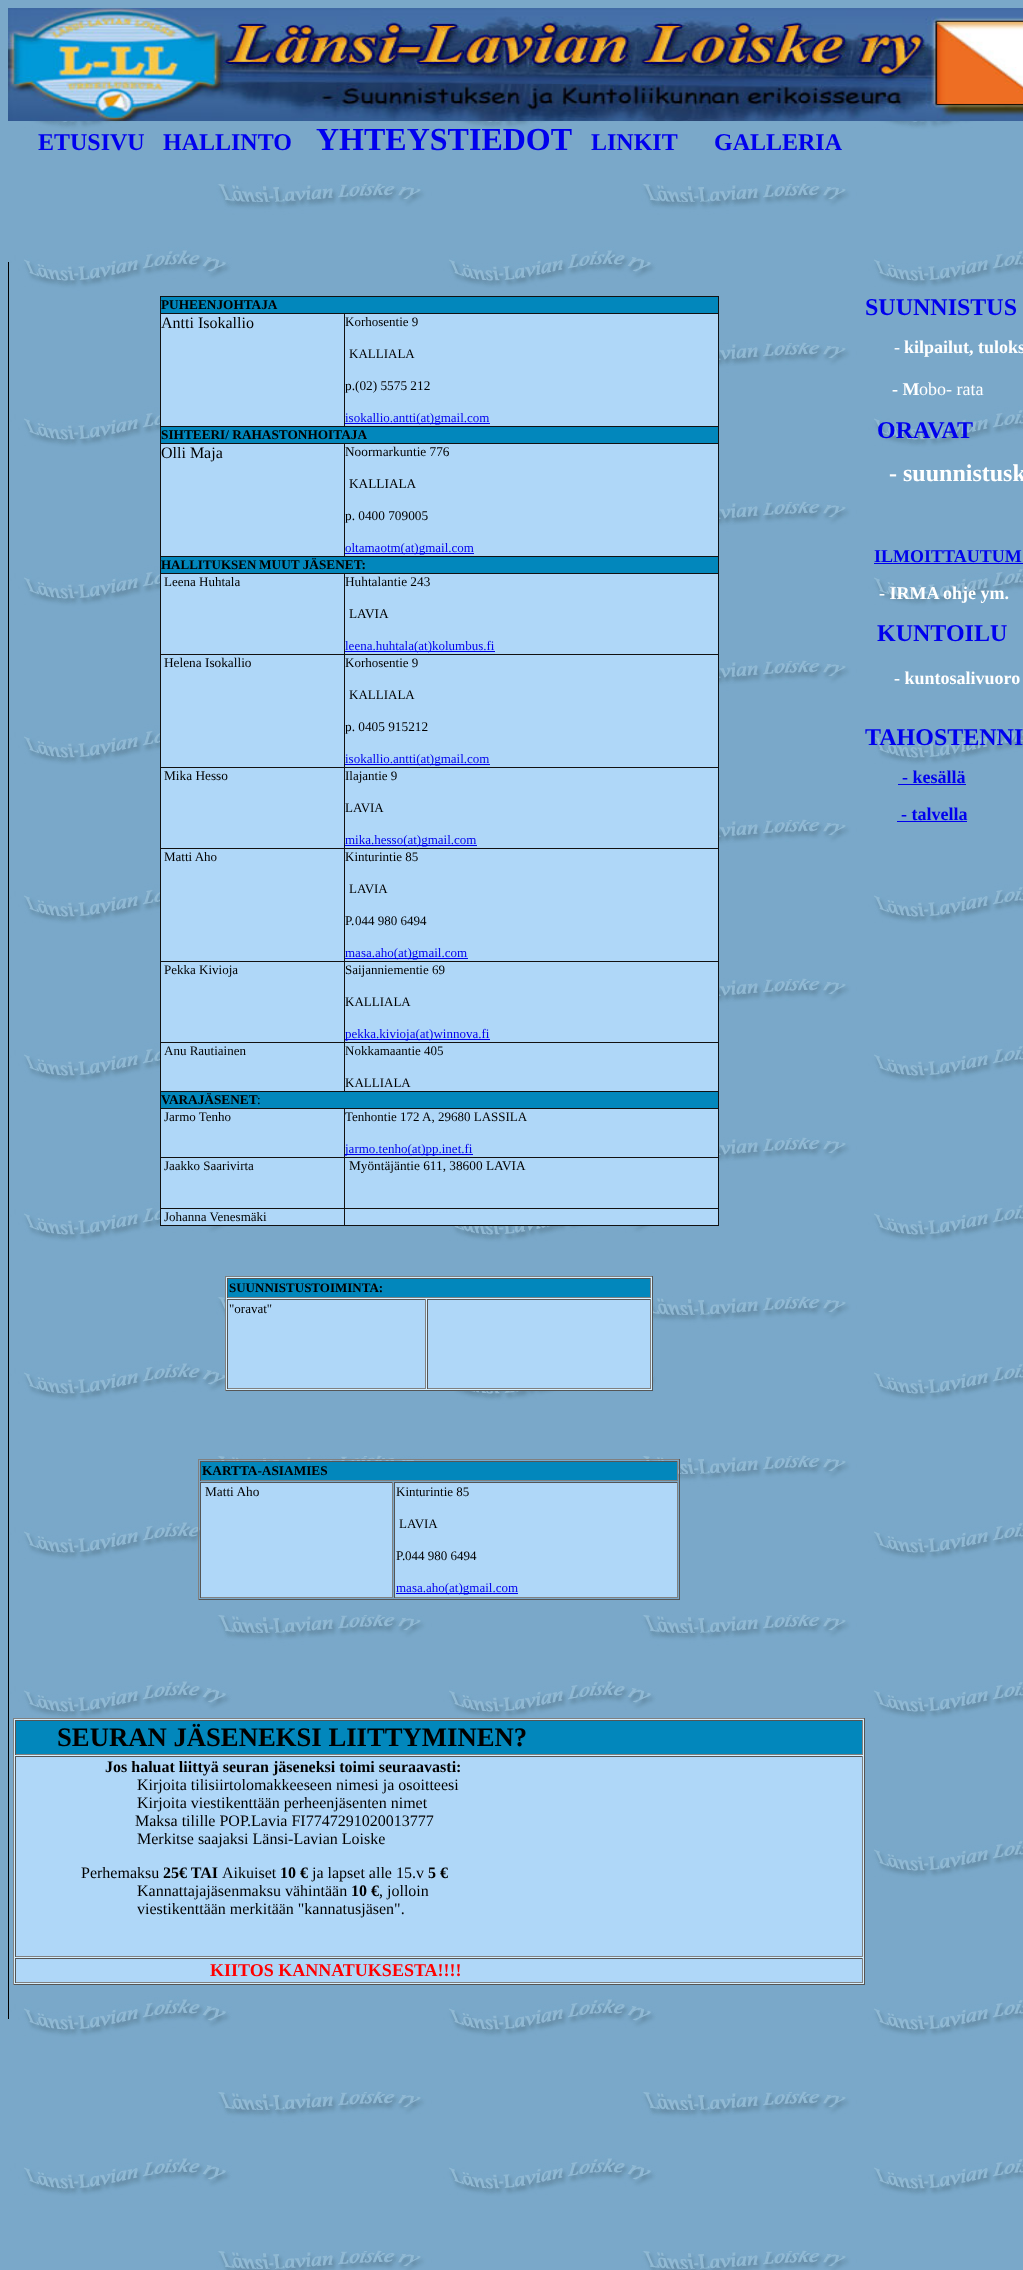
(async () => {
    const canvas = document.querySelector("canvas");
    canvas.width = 1023;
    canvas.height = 2270;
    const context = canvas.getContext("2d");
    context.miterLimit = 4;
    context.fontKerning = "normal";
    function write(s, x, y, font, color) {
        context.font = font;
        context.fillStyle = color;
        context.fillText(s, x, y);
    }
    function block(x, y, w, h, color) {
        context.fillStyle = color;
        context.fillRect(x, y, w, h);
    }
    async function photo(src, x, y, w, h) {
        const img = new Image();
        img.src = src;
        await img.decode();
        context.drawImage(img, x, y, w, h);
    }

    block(0, 0, 1023, 2270, "rgb(255, 255, 255)");
    await photo("media/1.png", 0, 0, 1023, 2270);
    await photo("media/2.png", 16, 121, 1007, 2149);
    await photo("media/3.png", 8, 8, 1015, 113);
    write("ETUSIVU", 38, 150, "bold 24px Liberation Serif", "rgb(0, 0, 238)");
    write("HALLINTO", 163, 150, "bold 24px Liberation Serif", "rgb(0, 0, 238)");
    write("YHTEYSTIEDOT", 316, 150, "bold 32px Liberation Serif", "rgb(0, 0, 238)");
    write("LINKIT", 591, 150, "bold 24px Liberation Serif", "rgb(0, 0, 238)");
    write("GALLERIA", 714, 150, "bold 24px Liberation Serif", "rgb(0, 0, 238)");
    write("SUUNNISTUS", 865, 315, "bold 24px Liberation Serif", "rgb(0, 0, 238)");
    write("-", 894, 353, "18px Liberation Serif", "rgb(255, 255, 255)");
    write("kilpailut, tuloks", 904, 353, "bold 18px Liberation Serif", "rgb(255, 255, 255)");
    write("- M", 892, 395, "bold 18px Liberation Serif", "rgb(255, 255, 255)");
    write("obo- rata", 919, 395, "18px Liberation Serif", "rgb(255, 255, 255)");
    write("ORAVAT", 877, 438, "bold 24px Liberation Serif", "rgb(0, 0, 238)");
    write("- suunnistusk", 889, 481, "bold 24px Liberation Serif", "rgb(255, 255, 255)");
    write("ILMOITTAUTUM", 874, 562, "bold 18px Liberation Serif", "rgb(0, 0, 238)");
    block(874, 563, 149, 1, "rgb(0, 0, 238)");
    write("- IRMA ohje ym.", 879, 599, "bold 18px Liberation Serif", "rgb(255, 255, 255)");
    write("KUNTOILU", 877, 641, "bold 24px Liberation Serif", "rgb(0, 0, 238)");
    write("- kuntosalivuoro", 894, 684, "bold 18px Liberation Serif", "rgb(255, 255, 255)");
    write("TAHOSTENNI", 865, 745, "bold 24px Liberation Serif", "rgb(0, 0, 238)");
    write("- kesällä", 902, 783, "bold 18px Liberation Serif", "rgb(0, 0, 238)");
    block(898, 784, 68, 1, "rgb(0, 0, 238)");
    write("- talvella", 901, 820, "bold 18px Liberation Serif", "rgb(0, 0, 238)");
    block(897, 821, 70, 1, "rgb(0, 0, 238)");
    block(8, 262, 1, 1757, "rgb(0, 0, 0)");
    block(161, 297, 557, 16, "rgb(2, 135, 188)");
    block(160, 296, 559, 1, "rgb(17, 17, 17)");
    block(718, 313, 1, 913, "rgb(17, 17, 17)");
    block(718, 296, 1, 18, "rgb(17, 17, 17)");
    block(344, 426, 375, 1, "rgb(17, 17, 17)");
    block(344, 313, 1, 114, "rgb(17, 17, 17)");
    block(344, 556, 375, 1, "rgb(17, 17, 17)");
    block(344, 443, 1, 114, "rgb(17, 17, 17)");
    block(344, 1091, 375, 1, "rgb(17, 17, 17)");
    block(344, 1042, 1, 50, "rgb(17, 17, 17)");
    block(344, 1042, 375, 1, "rgb(17, 17, 17)");
    block(344, 961, 1, 82, "rgb(17, 17, 17)");
    block(344, 961, 375, 1, "rgb(17, 17, 17)");
    block(344, 848, 1, 114, "rgb(17, 17, 17)");
    block(344, 848, 375, 1, "rgb(17, 17, 17)");
    block(344, 767, 1, 82, "rgb(17, 17, 17)");
    block(344, 767, 375, 1, "rgb(17, 17, 17)");
    block(344, 654, 1, 114, "rgb(17, 17, 17)");
    block(344, 654, 375, 1, "rgb(17, 17, 17)");
    block(344, 573, 1, 82, "rgb(17, 17, 17)");
    block(344, 1225, 375, 1, "rgb(17, 17, 17)");
    block(344, 1208, 1, 18, "rgb(17, 17, 17)");
    block(344, 1208, 375, 1, "rgb(17, 17, 17)");
    block(344, 1157, 1, 52, "rgb(17, 17, 17)");
    block(344, 1157, 375, 1, "rgb(17, 17, 17)");
    block(344, 1108, 1, 50, "rgb(17, 17, 17)");
    block(160, 1225, 185, 1, "rgb(17, 17, 17)");
    block(160, 1208, 1, 18, "rgb(17, 17, 17)");
    block(160, 1208, 185, 1, "rgb(17, 17, 17)");
    block(160, 1157, 1, 52, "rgb(17, 17, 17)");
    block(160, 1157, 185, 1, "rgb(17, 17, 17)");
    block(160, 1108, 1, 50, "rgb(17, 17, 17)");
    block(160, 1108, 559, 1, "rgb(17, 17, 17)");
    block(160, 1091, 1, 18, "rgb(17, 17, 17)");
    block(160, 1091, 185, 1, "rgb(17, 17, 17)");
    block(160, 1042, 1, 50, "rgb(17, 17, 17)");
    block(160, 1042, 185, 1, "rgb(17, 17, 17)");
    block(160, 961, 1, 82, "rgb(17, 17, 17)");
    block(160, 961, 185, 1, "rgb(17, 17, 17)");
    block(160, 848, 1, 114, "rgb(17, 17, 17)");
    block(160, 848, 185, 1, "rgb(17, 17, 17)");
    block(160, 767, 1, 82, "rgb(17, 17, 17)");
    block(160, 767, 185, 1, "rgb(17, 17, 17)");
    block(160, 654, 1, 114, "rgb(17, 17, 17)");
    block(160, 654, 185, 1, "rgb(17, 17, 17)");
    block(160, 573, 1, 82, "rgb(17, 17, 17)");
    block(160, 573, 559, 1, "rgb(17, 17, 17)");
    block(160, 556, 1, 18, "rgb(17, 17, 17)");
    block(160, 556, 185, 1, "rgb(17, 17, 17)");
    block(160, 443, 1, 114, "rgb(17, 17, 17)");
    block(160, 443, 559, 1, "rgb(17, 17, 17)");
    block(160, 426, 1, 18, "rgb(17, 17, 17)");
    block(160, 426, 185, 1, "rgb(17, 17, 17)");
    block(160, 313, 1, 114, "rgb(17, 17, 17)");
    block(160, 313, 559, 1, "rgb(17, 17, 17)");
    block(160, 296, 1, 18, "rgb(17, 17, 17)");
    write("PUHEENJOHTAJA", 161, 309, "bold 13.3px Liberation Serif", "rgb(0, 0, 0)");
    block(161, 314, 183, 112, "rgb(175, 215, 248)");
    write("Antti Isokallio", 161, 328, "16px Liberation Serif", "rgb(0, 0, 0)");
    block(345, 314, 373, 112, "rgb(175, 215, 248)");
    write("Korhosentie 9", 345, 326, "13px Liberation Serif", "rgb(0, 0, 0)");
    write("KALLIALA", 349, 358, "13px Liberation Serif", "rgb(0, 0, 0)");
    write("p.(02) 5575 212", 345, 390, "13.3px Liberation Serif", "rgb(0, 0, 0)");
    block(345, 423, 145, 1, "rgb(0, 0, 238)");
    write("isokallio.antti(at)gmail.com", 345, 422, "13px Liberation Serif", "rgb(0, 0, 238)");
    block(161, 427, 557, 16, "rgb(2, 135, 188)");
    write("SIHTEERI/ RAHASTONHOITAJA", 161, 439, "bold 13.3px Liberation Serif", "rgb(0, 0, 0)");
    block(161, 444, 183, 112, "rgb(175, 215, 248)");
    write("Olli Maja", 161, 458, "16px Liberation Serif", "rgb(0, 0, 0)");
    block(345, 444, 373, 112, "rgb(175, 215, 248)");
    write("Noormarkuntie 776", 345, 456, "13.3px Liberation Serif", "rgb(0, 0, 0)");
    write("KALLIALA", 349, 488, "13.3px Liberation Serif", "rgb(0, 0, 0)");
    write("p. 0400 709005", 345, 520, "13.3px Liberation Serif", "rgb(0, 0, 0)");
    block(345, 553, 129, 1, "rgb(0, 0, 238)");
    write("oltamaotm(at)gmail.com", 345, 552, "13px Liberation Serif", "rgb(0, 0, 238)");
    block(161, 557, 557, 16, "rgb(2, 135, 188)");
    write("HALLITUKSEN", 161, 569, "bold 13px Liberation Serif", "rgb(0, 0, 0)");
    write("MUUT JÄSENET:", 259, 569, "bold 13.3px Liberation Serif", "rgb(0, 0, 0)");
    block(161, 574, 183, 80, "rgb(175, 215, 248)");
    write("Leena Huhtala", 164, 586, "13px Liberation Serif", "rgb(0, 0, 0)");
    block(345, 574, 373, 80, "rgb(175, 215, 248)");
    write("Huhtalantie 243", 345, 586, "13.3px Liberation Serif", "rgb(0, 0, 0)");
    write("LAVIA", 349, 618, "13.3px Liberation Serif", "rgb(0, 0, 0)");
    block(345, 651, 150, 1, "rgb(0, 0, 238)");
    write("leena.huhtala(at)kolumbus.fi", 345, 650, "13px Liberation Serif", "rgb(0, 0, 238)");
    block(161, 655, 183, 112, "rgb(175, 215, 248)");
    write("Helena Isokallio", 164, 667, "13.3px Liberation Serif", "rgb(0, 0, 0)");
    block(345, 655, 373, 112, "rgb(175, 215, 248)");
    write("Korhosentie 9", 345, 667, "13px Liberation Serif", "rgb(0, 0, 0)");
    write("KALLIALA", 349, 699, "13px Liberation Serif", "rgb(0, 0, 0)");
    write("p. 0405 915212", 345, 731, "13.3px Liberation Serif", "rgb(0, 0, 0)");
    block(345, 764, 145, 1, "rgb(0, 0, 238)");
    write("isokallio.antti(at)gmail.com", 345, 763, "13px Liberation Serif", "rgb(0, 0, 238)");
    block(161, 768, 183, 80, "rgb(175, 215, 248)");
    write("Mika Hesso", 164, 780, "13.3px Liberation Serif", "rgb(0, 0, 0)");
    block(345, 768, 373, 80, "rgb(175, 215, 248)");
    write("Ilajantie 9", 345, 780, "13px Liberation Serif", "rgb(0, 0, 0)");
    write("LAVIA", 345, 812, "13px Liberation Serif", "rgb(0, 0, 0)");
    block(345, 845, 132, 1, "rgb(0, 0, 238)");
    write("mika.hesso(at)gmail.com", 345, 844, "13px Liberation Serif", "rgb(0, 0, 238)");
    block(161, 849, 183, 112, "rgb(175, 215, 248)");
    write("Matti Aho", 164, 861, "13px Liberation Serif", "rgb(0, 0, 0)");
    block(345, 849, 373, 112, "rgb(175, 215, 248)");
    write("Kinturintie 85", 345, 861, "13px Liberation Serif", "rgb(0, 0, 0)");
    write("LAVIA", 349, 893, "13px Liberation Serif", "rgb(0, 0, 0)");
    write("P.", 345, 925, "13.3px Liberation Serif", "rgb(0, 0, 0)");
    write("044 980 6494", 355, 925, "13px Liberation Serif", "rgb(0, 0, 0)");
    block(345, 958, 123, 1, "rgb(0, 0, 238)");
    write("masa.aho(at)gmail.com", 345, 957, "13px Liberation Serif", "rgb(0, 0, 238)");
    block(161, 962, 183, 80, "rgb(175, 215, 248)");
    write("Pekka Kivioja", 164, 974, "13px Liberation Serif", "rgb(0, 0, 0)");
    block(345, 962, 373, 80, "rgb(175, 215, 248)");
    write("Saijanniementie 69", 345, 974, "13px Liberation Serif", "rgb(0, 0, 0)");
    write("KALLIALA", 345, 1006, "13px Liberation Serif", "rgb(0, 0, 0)");
    block(345, 1039, 145, 1, "rgb(0, 0, 238)");
    write("pekka.kivioja(at)winnova.fi", 345, 1038, "13px Liberation Serif", "rgb(0, 0, 238)");
    block(161, 1043, 183, 48, "rgb(175, 215, 248)");
    write("Anu Rautiainen", 164, 1055, "13px Liberation Serif", "rgb(0, 0, 0)");
    block(345, 1043, 373, 48, "rgb(175, 215, 248)");
    write("Nokkamaantie 405", 345, 1055, "13px Liberation Serif", "rgb(0, 0, 0)");
    write("KALLIALA", 345, 1087, "13px Liberation Serif", "rgb(0, 0, 0)");
    block(161, 1092, 557, 16, "rgb(2, 135, 188)");
    write("VARAJÄSENET", 161, 1104, "bold 13.3px Liberation Serif", "rgb(0, 0, 0)");
    write(":", 257, 1104, "13.3px Liberation Serif", "rgb(0, 0, 0)");
    block(161, 1109, 183, 48, "rgb(175, 215, 248)");
    write("Jarmo Tenho", 164, 1121, "13px Liberation Serif", "rgb(0, 0, 0)");
    block(345, 1109, 373, 48, "rgb(175, 215, 248)");
    write("Tenhontie 172 A, 29680 LASSILA", 345, 1121, "13px Liberation Serif", "rgb(0, 0, 0)");
    block(345, 1154, 128, 1, "rgb(0, 0, 238)");
    write("jarmo.tenho(at)pp.inet.fi", 345, 1153, "13px Liberation Serif", "rgb(0, 0, 238)");
    block(161, 1158, 183, 50, "rgb(175, 215, 248)");
    write("Jaakko Saarivirta", 164, 1170, "13px Liberation Serif", "rgb(0, 0, 0)");
    block(345, 1158, 373, 50, "rgb(175, 215, 248)");
    write("Myöntäjäntie 611, 38600 LAVIA", 349, 1170, "13.3px Liberation Serif", "rgb(0, 0, 0)");
    block(161, 1209, 183, 16, "rgb(175, 215, 248)");
    write("Johanna Venesmäki", 164, 1221, "13px Liberation Serif", "rgb(0, 0, 0)");
    block(345, 1209, 373, 16, "rgb(175, 215, 248)");
    block(226, 1277, 426, 113, "rgb(213, 240, 255)");
    block(225, 1276, 428, 1, "rgb(128, 128, 128)");
    block(652, 1276, 1, 115, "rgb(85, 85, 85)");
    block(225, 1390, 428, 1, "rgb(85, 85, 85)");
    block(225, 1276, 1, 115, "rgb(128, 128, 128)");
    block(228, 1279, 422, 18, "rgb(2, 135, 188)");
    block(227, 1278, 424, 1, "rgb(85, 85, 85)");
    block(650, 1278, 1, 20, "rgb(128, 128, 128)");
    block(227, 1297, 424, 1, "rgb(128, 128, 128)");
    block(227, 1278, 1, 20, "rgb(85, 85, 85)");
    write("SUUNNISTUSTOIMINTA:", 229, 1292, "bold 13px Liberation Serif", "rgb(0, 0, 0)");
    block(228, 1300, 197, 88, "rgb(175, 215, 248)");
    block(227, 1299, 199, 1, "rgb(85, 85, 85)");
    block(425, 1299, 1, 90, "rgb(128, 128, 128)");
    block(227, 1388, 199, 1, "rgb(128, 128, 128)");
    block(227, 1299, 1, 90, "rgb(85, 85, 85)");
    write("\"oravat\"", 229, 1313, "13px Liberation Serif", "rgb(0, 0, 0)");
    block(428, 1300, 222, 88, "rgb(175, 215, 248)");
    block(427, 1299, 224, 1, "rgb(85, 85, 85)");
    block(650, 1299, 1, 90, "rgb(128, 128, 128)");
    block(427, 1388, 224, 1, "rgb(128, 128, 128)");
    block(427, 1299, 1, 90, "rgb(85, 85, 85)");
    block(198, 1459, 482, 1, "rgb(128, 128, 128)");
    block(679, 1459, 1, 141, "rgb(85, 85, 85)");
    block(198, 1599, 482, 1, "rgb(85, 85, 85)");
    block(198, 1459, 1, 141, "rgb(128, 128, 128)");
    block(201, 1462, 476, 18, "rgb(2, 135, 188)");
    block(200, 1461, 478, 1, "rgb(85, 85, 85)");
    block(677, 1461, 1, 20, "rgb(128, 128, 128)");
    block(200, 1480, 478, 1, "rgb(128, 128, 128)");
    block(200, 1461, 1, 20, "rgb(85, 85, 85)");
    write("KARTTA-ASIAMIES", 202, 1475, "bold 13.3px Liberation Serif", "rgb(0, 0, 0)");
    block(201, 1483, 191, 114, "rgb(175, 215, 248)");
    block(200, 1482, 193, 1, "rgb(85, 85, 85)");
    block(392, 1482, 1, 116, "rgb(128, 128, 128)");
    block(200, 1597, 193, 1, "rgb(128, 128, 128)");
    block(200, 1482, 1, 116, "rgb(85, 85, 85)");
    write("Matti Aho", 205, 1496, "13.3px Liberation Serif", "rgb(0, 0, 0)");
    block(395, 1483, 282, 114, "rgb(175, 215, 248)");
    block(394, 1482, 284, 1, "rgb(85, 85, 85)");
    block(677, 1482, 1, 116, "rgb(128, 128, 128)");
    block(394, 1597, 284, 1, "rgb(128, 128, 128)");
    block(394, 1482, 1, 116, "rgb(85, 85, 85)");
    write("Kinturintie 85", 396, 1496, "13px Liberation Serif", "rgb(0, 0, 0)");
    write("LAVIA", 399, 1528, "13px Liberation Serif", "rgb(0, 0, 0)");
    write("P.", 396, 1560, "13.3px Liberation Serif", "rgb(0, 0, 0)");
    write("044 980 6494", 405, 1560, "13px Liberation Serif", "rgb(0, 0, 0)");
    block(396, 1593, 122, 1, "rgb(0, 0, 238)");
    write("masa.aho(at)gmail.com", 396, 1592, "13px Liberation Serif", "rgb(0, 0, 238)");
    block(14, 1719, 850, 265, "rgb(213, 240, 255)");
    block(13, 1718, 852, 1, "rgb(128, 128, 128)");
    block(864, 1718, 1, 267, "rgb(85, 85, 85)");
    block(13, 1984, 852, 1, "rgb(85, 85, 85)");
    block(13, 1718, 1, 267, "rgb(128, 128, 128)");
    block(16, 1721, 846, 33, "rgb(2, 135, 188)");
    block(15, 1720, 848, 1, "rgb(85, 85, 85)");
    block(862, 1720, 1, 35, "rgb(128, 128, 128)");
    block(15, 1754, 848, 1, "rgb(128, 128, 128)");
    block(15, 1720, 1, 35, "rgb(85, 85, 85)");
    write("SEURAN JÄSENEKSI LIITTYMINEN?", 57, 1746, "bold 26.7px Liberation Serif", "rgb(0, 0, 0)");
    block(16, 1757, 846, 199, "rgb(175, 215, 248)");
    block(15, 1756, 848, 1, "rgb(85, 85, 85)");
    block(862, 1756, 1, 201, "rgb(128, 128, 128)");
    block(15, 1956, 848, 1, "rgb(128, 128, 128)");
    block(15, 1756, 1, 201, "rgb(85, 85, 85)");
    write("Jos haluat liittyä seuran jäseneksi toimi seuraavasti:", 105, 1772, "bold 16px Liberation Serif", "rgb(0, 0, 0)");
    write("Kirjoita tilisiirtolomakkeeseen nimesi ja osoitteesi", 137, 1790, "16px Liberation Serif", "rgb(0, 0, 0)");
    write("Kirjoita viestikenttään perheenjäsenten nimet", 137, 1808, "16px Liberation Serif", "rgb(0, 0, 0)");
    write("Maksa tilille POP.Lavia FI7747291020013777", 135, 1826, "16px Liberation Serif", "rgb(0, 0, 0)");
    write("Merkitse saajaksi Länsi-Lavian Loiske", 137, 1844, "16px Liberation Serif", "rgb(0, 0, 0)");
    write("Perhemaksu", 81, 1878, "16px Liberation Serif", "rgb(0, 0, 0)");
    write("25€ TAI", 163, 1878, "bold 16px Liberation Serif", "rgb(0, 0, 0)");
    write("Aikuiset", 222, 1878, "16px Liberation Serif", "rgb(0, 0, 0)");
    write("10 €", 280, 1878, "bold 16px Liberation Serif", "rgb(0, 0, 0)");
    write("ja lapset alle 15.v", 312, 1878, "16px Liberation Serif", "rgb(0, 0, 0)");
    write("5 €", 428, 1878, "bold 16px Liberation Serif", "rgb(0, 0, 0)");
    write("Kannattajajäsenmaksu vähintään", 137, 1896, "16px Liberation Serif", "rgb(0, 0, 0)");
    write("10 €", 351, 1896, "bold 16px Liberation Serif", "rgb(0, 0, 0)");
    write(", jolloin", 379, 1896, "16px Liberation Serif", "rgb(0, 0, 0)");
    write("viestikenttään merkitään \"kannatusjäsen\".", 137, 1914, "16px Liberation Serif", "rgb(0, 0, 0)");
    block(16, 1959, 846, 23, "rgb(175, 215, 248)");
    block(15, 1958, 848, 1, "rgb(85, 85, 85)");
    block(862, 1958, 1, 25, "rgb(128, 128, 128)");
    block(15, 1982, 848, 1, "rgb(128, 128, 128)");
    block(15, 1958, 1, 25, "rgb(85, 85, 85)");
    write("KIITOS KANNATUKSESTA!!!!", 210, 1976, "bold 18px Liberation Serif", "rgb(255, 0, 0)");
})();
